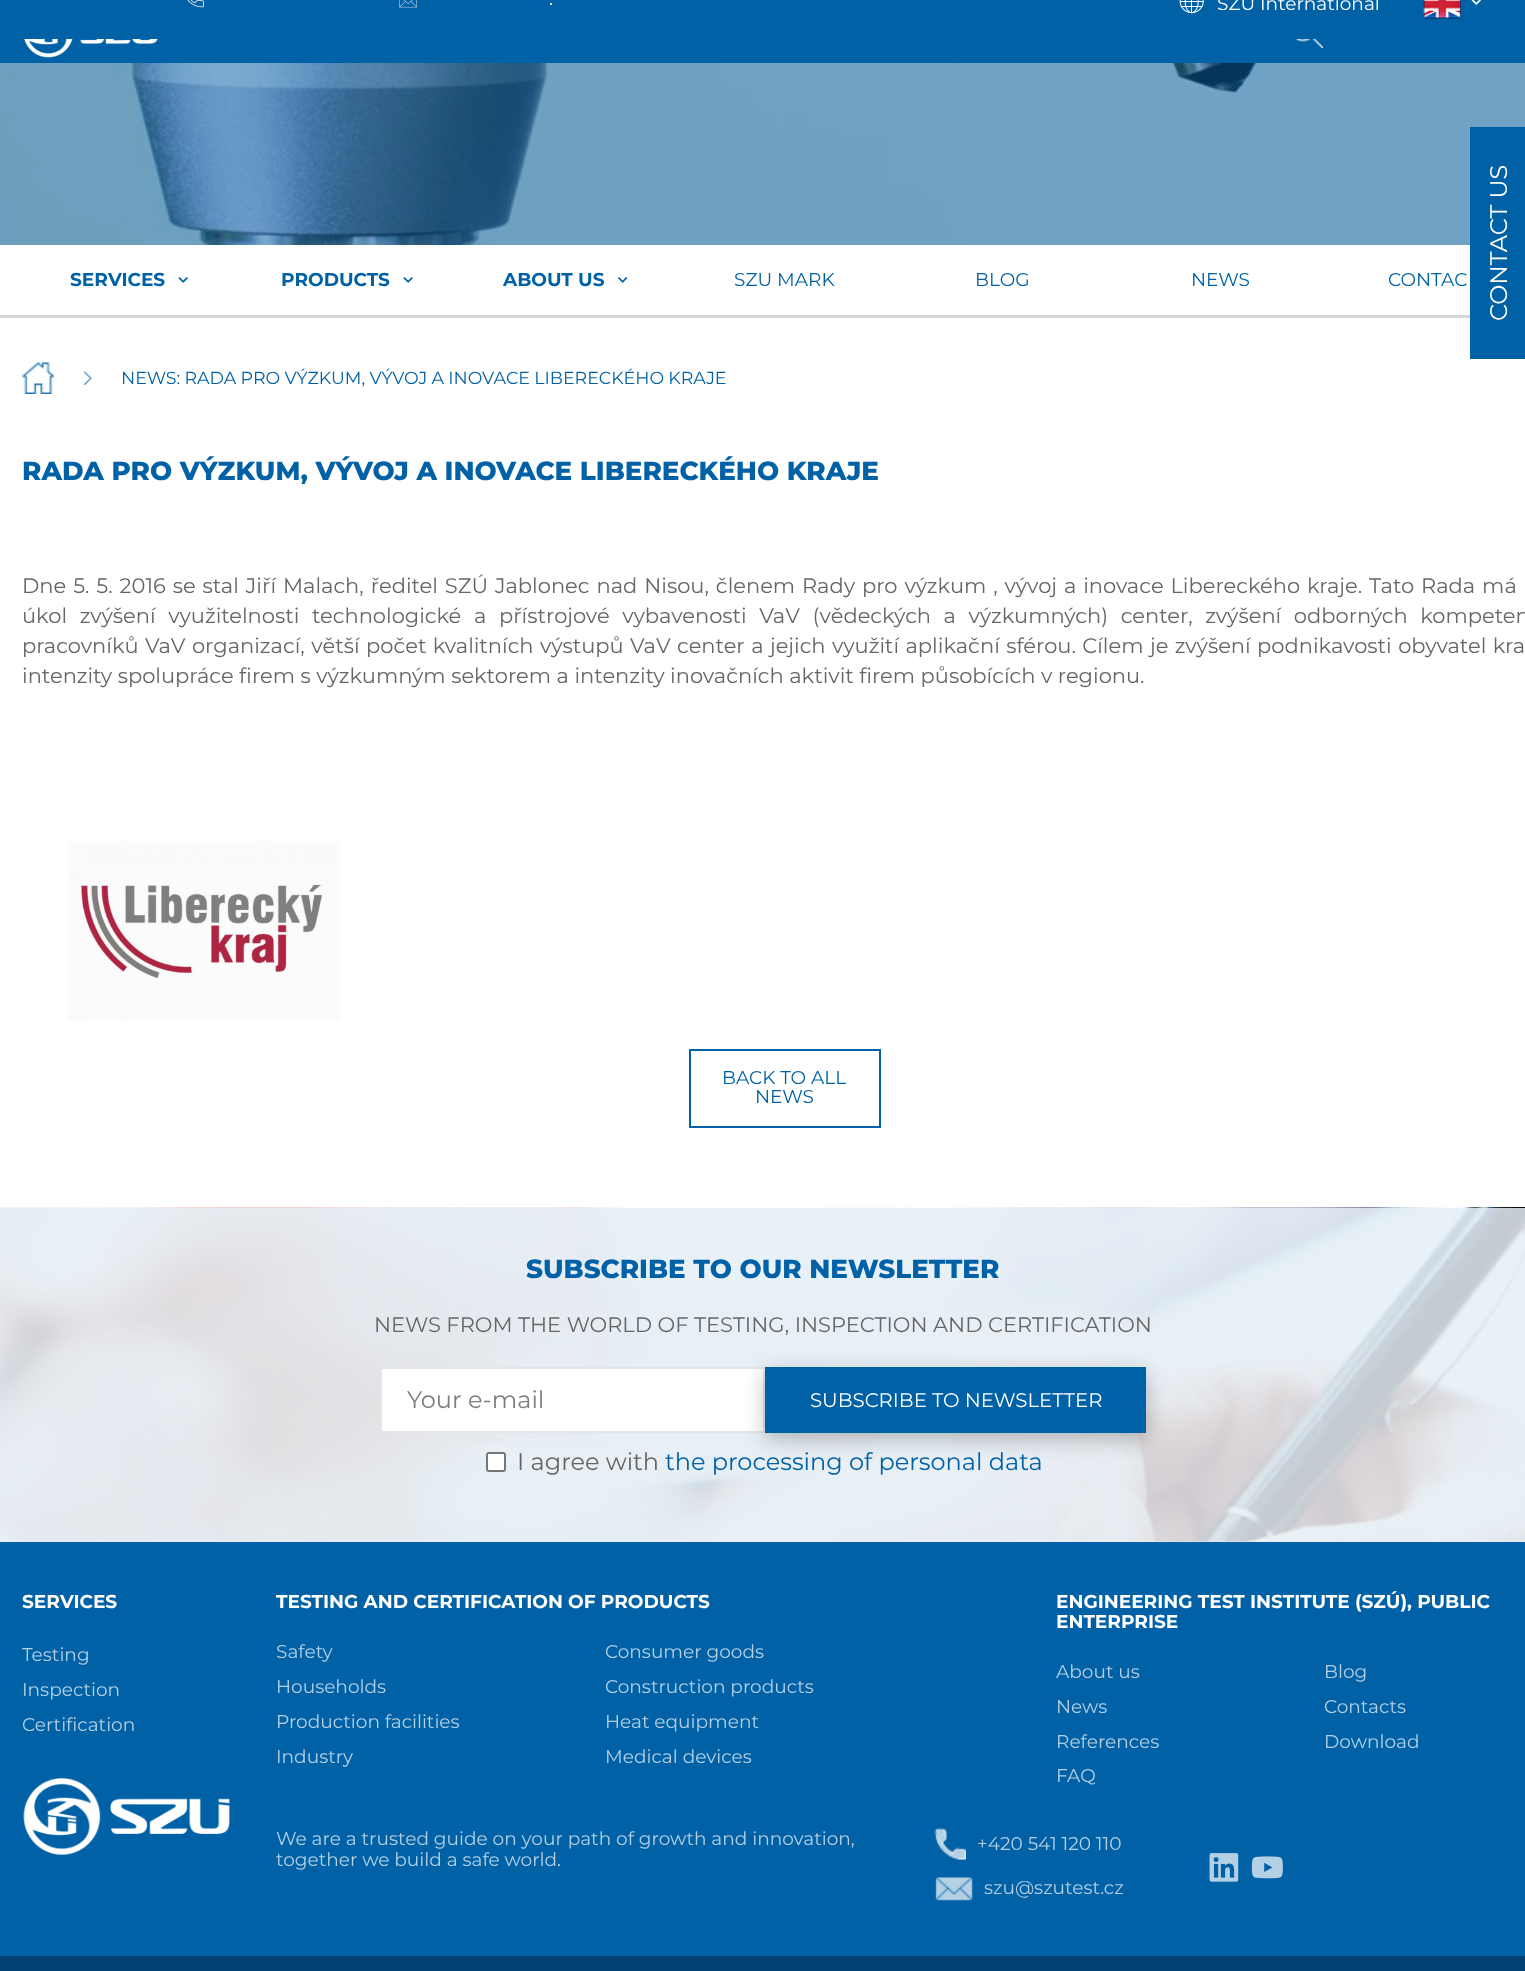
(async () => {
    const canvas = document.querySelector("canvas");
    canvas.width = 1525;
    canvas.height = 1971;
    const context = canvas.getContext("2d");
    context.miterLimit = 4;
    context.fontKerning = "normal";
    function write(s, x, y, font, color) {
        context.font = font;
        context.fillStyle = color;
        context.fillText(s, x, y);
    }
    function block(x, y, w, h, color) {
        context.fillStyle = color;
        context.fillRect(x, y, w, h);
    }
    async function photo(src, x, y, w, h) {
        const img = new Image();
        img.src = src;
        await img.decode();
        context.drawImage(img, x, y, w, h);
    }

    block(0, 0, 1525, 1971, "rgb(255, 255, 255)");
    block(0, 1541, 1525, 1, "rgb(233, 241, 247)");
    block(0, 0, 1525, 63, "rgb(0, 97, 166)");
    await photo("media/1.png", 24, 39, 134, 19);
    await photo("media/2.png", 1295, 39, 29, 9);
    await photo("media/3.png", 0, 63, 1525, 182);
    await photo("media/4.png", 187, 0, 17, 8);
    await photo("media/5.png", 399, 0, 18, 8);
    write(".", 549, 5, "18.55px Montserrat", "rgb(255, 255, 255)");
    await photo("media/6.png", 1179, 0, 25, 14);
    write("SZU International", 1217, 10, "18.55px Montserrat", "rgb(255, 255, 255)");
    await photo("media/7.png", 1423, 0, 38, 19);
    await photo("media/8.png", 1471, 0, 10, 5);
    block(0, 315, 1470, 3, "rgb(214, 214, 214)");
    write("SERVICES", 70, 286, "bold 18.55px Montserrat", "rgb(0, 97, 166)");
    await photo("media/9.png", 178, 277, 10, 6);
    write("PRODUCTS", 281, 286, "bold 18.55px Montserrat", "rgb(0, 97, 166)");
    await photo("media/9.png", 403, 277, 10, 6);
    write("ABOUT US", 503, 286, "bold 18.55px Montserrat", "rgb(0, 97, 166)");
    await photo("media/10.png", 618, 277, 10, 6);
    write("SZU MARK", 734, 286, "18.55px Montserrat", "rgb(0, 97, 166)");
    write("BLOG", 975, 286, "18.55px Montserrat", "rgb(0, 97, 166)");
    write("NEWS", 1191, 286, "18.55px Montserrat", "rgb(0, 97, 166)");
    write("CONTAC", 1388, 286, "18.55px Montserrat", "rgb(0, 97, 166)");
    block(1470, 127, 55, 232, "rgb(0, 97, 166)");
    context.font = "24px Montserrat";
    context.fillStyle = "rgb(255, 255, 255)";
    context.save();
    context.translate(1507, 321);
    context.rotate(-90 * Math.PI / 180);
    context.fillText("CONTACT US", 0, 0);
    context.restore();
    await photo("media/11.png", 22, 362, 32, 32);
    await photo("media/12.png", 84, 371, 8, 14);
    context.wordSpacing = "-0.25px";
    write("NEWS: RADA PRO VÝZKUM, VÝVOJ A INOVACE LIBERECKÉHO KRAJE", 121, 384, "17.45px Montserrat", "rgb(0, 97, 166)");
    context.wordSpacing = "0px";
    write("RADA PRO VÝZKUM, VÝVOJ A INOVACE LIBERECKÉHO KRAJE", 22, 480, "800 26.2px Montserrat", "rgb(0, 97, 166)");
    context.wordSpacing = "1.4px";
    write("Dne 5. 5. 2016 se stal Jiří Malach, ředitel SZÚ Jablonec nad Nisou, členem Rady pro výzkum , vývoj a inovace Libereckého kraje. Tato Rada má", 22, 593, "21px Montserrat", "rgb(102, 102, 102)");
    context.wordSpacing = "7.1px";
    write("úkol zvýšení využitelnosti technologické a přístrojové vybavenosti VaV (vědeckých a výzkumných) center, zvýšení odborných kompeten", 22, 623, "21px Montserrat", "rgb(102, 102, 102)");
    context.wordSpacing = "0.9px";
    write("pracovníků VaV organizací, větší počet kvalitních výstupů VaV center a jejich využití aplikační sférou. Cílem je zvýšení podnikavosti obyvatel kra", 22, 653, "21px Montserrat", "rgb(102, 102, 102)");
    context.wordSpacing = "0px";
    write("intenzity spolupráce firem s výzkumným sektorem a intenzity inovačních aktivit firem působících v regionu.", 22, 683, "21px Montserrat", "rgb(102, 102, 102)");
    await photo("media/13.png", 68, 841, 272, 180);
    context.strokeStyle = "rgb(0, 97, 166)";
    context.lineWidth = 2;
    context.strokeRect(690, 1050, 190, 77);
    write("BACK TO ALL", 722, 1084, "18.55px Montserrat", "rgb(0, 97, 166)");
    write("NEWS", 755, 1103, "18.55px Montserrat", "rgb(0, 97, 166)");
    await photo("media/14.png", 0, 1207, 1525, 335);
    write("SUBSCRIBE TO OUR NEWSLETTER", 526, 1278, "800 26.2px Montserrat", "rgb(0, 97, 166)");
    write("NEWS FROM THE WORLD OF TESTING, INSPECTION AND CERTIFICATION", 374, 1332, "21px Montserrat", "rgb(102, 102, 102)");
    context.fillStyle = "rgb(255, 255, 255)";
    context.beginPath();
    context.rect(381, 1368, 383, 64);
    context.fill();
    context.strokeStyle = "rgb(229, 229, 229)";
    context.stroke();
    write("Your e-mail", 407, 1408, "24px Montserrat", "rgb(125, 125, 125)");
    context.fillStyle = "rgba(0, 0, 0, 0.25)";
    context.filter = "blur(10.5px)";
    context.beginPath();
    context.rect(765, 1373, 381, 66);
    context.fill();
    context.filter = "none";
    block(765, 1367, 381, 66, "rgb(0, 97, 166)");
    write("SUBSCRIBE TO NEWSLETTER", 810, 1407, "19.7px Montserrat", "rgb(255, 255, 255)");
    context.beginPath();
    context.roundRect(487, 1453, 18, 18, 2);
    context.fill();
    context.strokeStyle = "rgb(118, 118, 118)";
    context.stroke();
    write("I agree with", 517, 1470, "24px Montserrat", "rgb(102, 102, 102)");
    write("the processing of personal data", 665, 1470, "24px Montserrat", "rgb(0, 97, 166)");
    block(0, 1542, 1525, 414, "rgb(0, 97, 166)");
    write("SERVICES", 22, 1608, "bold 18.55px Montserrat", "rgb(255, 255, 255)");
    write("Testing", 22, 1661, "18.55px Montserrat", "rgb(179, 208, 228)");
    write("Inspection", 22, 1696, "18.55px Montserrat", "rgb(179, 208, 228)");
    write("Certification", 22, 1731, "18.55px Montserrat", "rgb(179, 208, 228)");
    await photo("media/15.png", 23, 1778, 207, 77);
    write("TESTING AND CERTIFICATION OF PRODUCTS", 276, 1608, "bold 18.55px Montserrat", "rgb(255, 255, 255)");
    write("Safety", 276, 1658, "18.55px Montserrat", "rgb(179, 208, 228)");
    write("Households", 276, 1693, "18.55px Montserrat", "rgb(179, 208, 228)");
    write("Production facilities", 276, 1728, "18.55px Montserrat", "rgb(179, 208, 228)");
    write("Industry", 276, 1763, "18.55px Montserrat", "rgb(179, 208, 228)");
    write("Consumer goods", 605, 1658, "18.55px Montserrat", "rgb(179, 208, 228)");
    write("Construction products", 605, 1693, "18.55px Montserrat", "rgb(179, 208, 228)");
    write("Heat equipment", 605, 1728, "18.55px Montserrat", "rgb(179, 208, 228)");
    write("Medical devices", 605, 1763, "18.55px Montserrat", "rgb(179, 208, 228)");
    write("We are a trusted guide on your path of growth and innovation,", 276, 1845, "18.55px Montserrat", "rgb(179, 208, 228)");
    write("together we build a safe world.", 276, 1866, "18.55px Montserrat", "rgb(179, 208, 228)");
    write("ENGINEERING TEST INSTITUTE (SZÚ), PUBLIC", 1056, 1608, "bold 18.55px Montserrat", "rgb(255, 255, 255)");
    write("ENTERPRISE", 1056, 1628, "bold 18.55px Montserrat", "rgb(255, 255, 255)");
    write("About us", 1056, 1678, "18.55px Montserrat", "rgb(179, 208, 228)");
    write("News", 1056, 1713, "18.55px Montserrat", "rgb(179, 208, 228)");
    write("References", 1056, 1748, "18.55px Montserrat", "rgb(179, 208, 228)");
    write("FAQ", 1056, 1782, "18.55px Montserrat", "rgb(179, 208, 228)");
    write("Blog", 1324, 1678, "18.55px Montserrat", "rgb(179, 208, 228)");
    write("Contacts", 1324, 1713, "18.55px Montserrat", "rgb(179, 208, 228)");
    write("Download", 1324, 1748, "18.55px Montserrat", "rgb(179, 208, 228)");
    await photo("media/16.png", 934, 1828, 32, 32);
    write("+420 541 120 110", 977, 1850, "18.55px Montserrat", "rgb(179, 208, 228)");
    await photo("media/17.png", 935, 1877, 38, 24);
    write("szu@szutest.cz", 984, 1894, "18.55px Montserrat", "rgb(179, 208, 228)");
    await photo("media/18.png", 1209, 1853, 30, 29);
    await photo("media/19.png", 1251, 1856, 32, 23);
    block(0, 1956, 1525, 15, "rgb(1, 64, 112)");
})();
